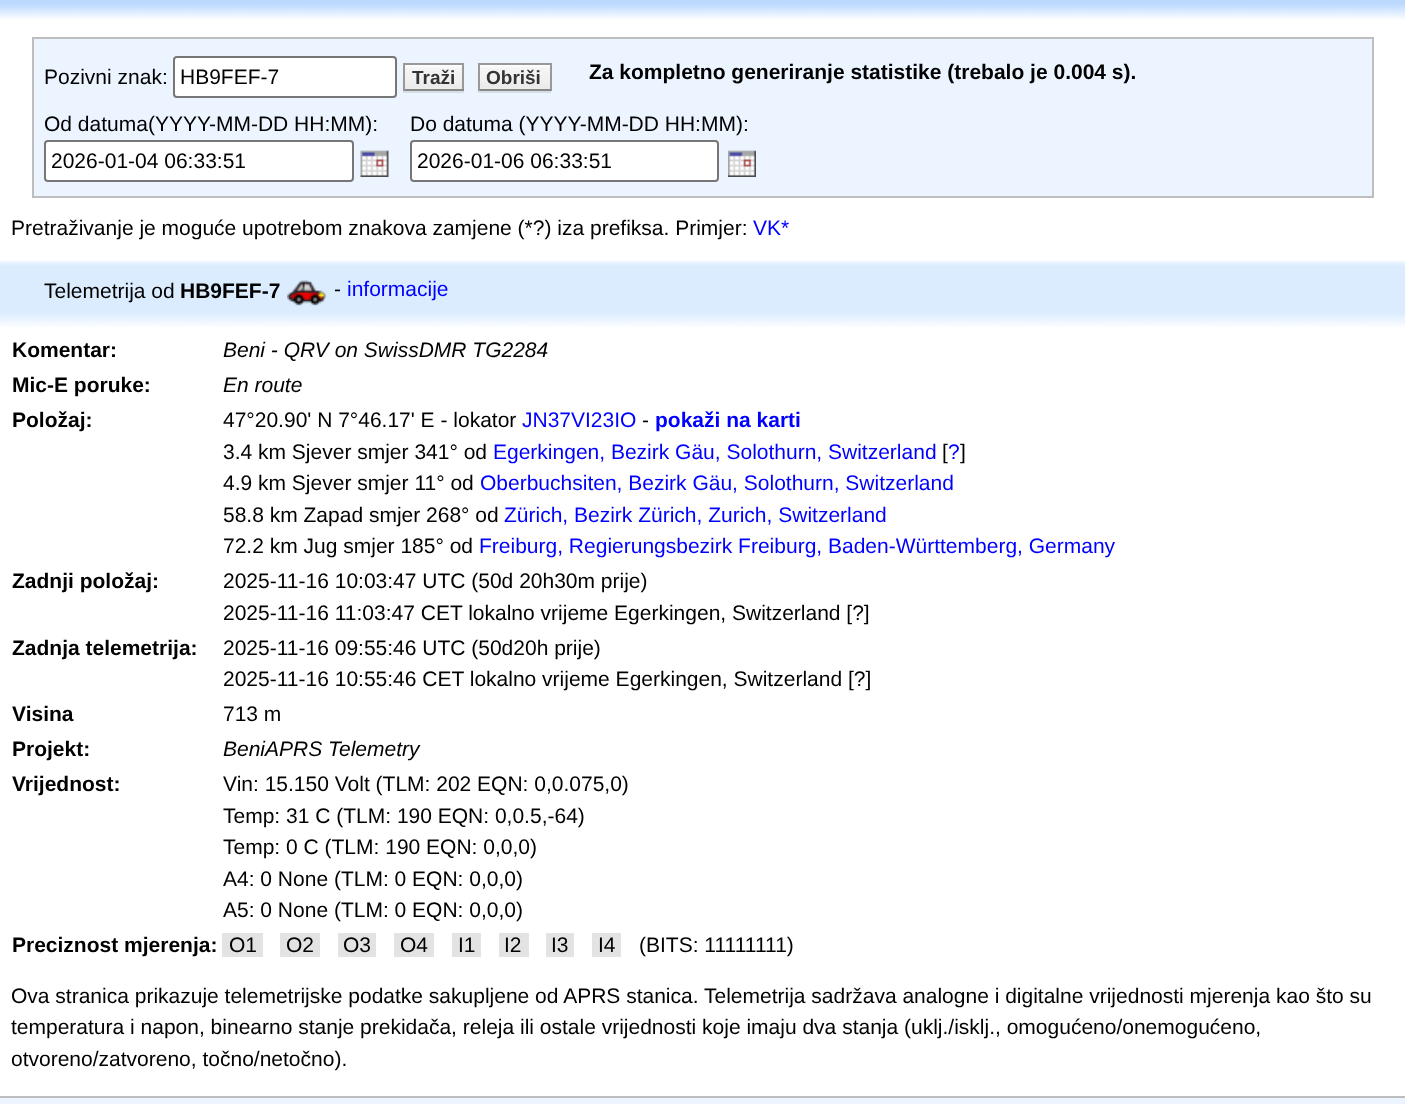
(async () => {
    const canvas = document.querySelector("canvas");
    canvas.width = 1405;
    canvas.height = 1104;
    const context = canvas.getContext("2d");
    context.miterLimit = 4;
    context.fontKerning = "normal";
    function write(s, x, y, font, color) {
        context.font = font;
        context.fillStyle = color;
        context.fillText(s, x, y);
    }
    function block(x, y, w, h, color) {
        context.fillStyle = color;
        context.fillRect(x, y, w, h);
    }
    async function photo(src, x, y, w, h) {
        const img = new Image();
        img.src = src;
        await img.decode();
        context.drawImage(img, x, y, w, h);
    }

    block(0, 0, 1405, 1104, "rgb(255, 255, 255)");
    block(0, 0, 1405, 2, "rgb(187, 217, 255)");
    await photo("media/1.png", 0, 2, 1405, 18);
    context.fillStyle = "rgb(235, 244, 255)";
    context.beginPath();
    context.rect(33, 38, 1340, 159);
    context.fill();
    context.strokeStyle = "rgb(189, 189, 189)";
    context.lineWidth = 2;
    context.stroke();
    write("Pozivni znak:", 44, 84, "21px Liberation Sans", "rgb(0, 0, 0)");
    context.fillStyle = "rgb(255, 255, 255)";
    context.beginPath();
    context.roundRect(174, 57, 222, 40, 3);
    context.fill();
    context.strokeStyle = "rgb(118, 118, 118)";
    context.stroke();
    write("HB9FEF-7", 180, 84, "21px Liberation Sans", "rgb(0, 0, 0)");
    context.fillStyle = "rgb(212, 220, 230)";
    context.beginPath();
    context.moveTo(403, 91);
    context.lineTo(403, 93);
    context.lineTo(464, 93);
    context.lineTo(464, 65);
    context.lineTo(464, 91);
    context.closePath();
    context.fill();
    await photo("media/2.png", 402, 65, 62, 27);
    block(403, 63, 61, 2, "rgb(153, 153, 153)");
    block(462, 63, 2, 28, "rgb(153, 153, 153)");
    block(403, 89, 61, 2, "rgb(136, 136, 136)");
    block(403, 63, 2, 28, "rgb(153, 153, 153)");
    write("Traži", 412, 84, "bold 19px Liberation Sans", "rgb(51, 51, 51)");
    block(478, 91, 73, 2, "rgb(212, 220, 230)");
    await photo("media/3.png", 477, 65, 75, 27);
    block(478, 63, 73, 2, "rgb(153, 153, 153)");
    block(550, 63, 2, 28, "rgb(153, 153, 153)");
    block(478, 89, 73, 2, "rgb(136, 136, 136)");
    block(478, 63, 2, 28, "rgb(153, 153, 153)");
    write("Obriši", 486, 84, "bold 19px Liberation Sans", "rgb(51, 51, 51)");
    write("Za kompletno generiranje statistike (trebalo je 0.004 s).", 589, 79, "bold 21px Liberation Sans", "rgb(0, 0, 0)");
    write("Od datuma(YYYY-MM-DD HH:MM):", 44, 131, "21px Liberation Sans", "rgb(0, 0, 0)");
    context.fillStyle = "rgb(255, 255, 255)";
    context.beginPath();
    context.roundRect(45, 141, 308, 40, 3);
    context.fill();
    context.stroke();
    write("2026-01-04 06:33:51", 51, 168, "21px Liberation Sans", "rgb(0, 0, 0)");
    await photo("media/4.png", 360, 150, 29, 27);
    write("Do datuma (YYYY-MM-DD HH:MM):", 410, 131, "21px Liberation Sans", "rgb(0, 0, 0)");
    context.fillStyle = "rgb(255, 255, 255)";
    context.beginPath();
    context.roundRect(411, 141, 307, 40, 3);
    context.fill();
    context.stroke();
    write("2026-01-06 06:33:51", 417, 168, "21px Liberation Sans", "rgb(0, 0, 0)");
    await photo("media/5.png", 728, 150, 28, 27);
    write("Pretraživanje je moguće upotrebom znakova zamjene (*?) iza prefiksa. Primjer:", 11, 235, "21px Liberation Sans", "rgb(0, 0, 0)");
    write("VK*", 753, 235, "21px Liberation Sans", "rgb(0, 0, 255)");
    await photo("media/6.png", 0, 260, 1405, 6);
    block(0, 266, 1405, 46, "rgb(220, 236, 255)");
    write("Telemetrija od", 44, 298, "21px Liberation Sans", "rgb(0, 0, 0)");
    write("HB9FEF-7", 180, 298, "bold 21px Liberation Sans", "rgb(0, 0, 0)");
    await photo("media/7.png", 287, 280, 39, 26);
    write("-", 334, 296, "21px Liberation Sans", "rgb(0, 0, 0)");
    write("informacije", 347, 296, "21px Liberation Sans", "rgb(0, 0, 255)");
    await photo("media/8.png", 0, 312, 1405, 15);
    write("Komentar:", 12, 357, "bold 21px Liberation Sans", "rgb(0, 0, 0)");
    write("Beni - QRV on SwissDMR TG2284", 223, 357, "italic 21px Liberation Sans", "rgb(0, 0, 0)");
    write("Mic-E poruke:", 12, 392, "bold 21px Liberation Sans", "rgb(0, 0, 0)");
    write("En route", 223, 392, "italic 21px Liberation Sans", "rgb(0, 0, 0)");
    write("Položaj:", 12, 427, "bold 21px Liberation Sans", "rgb(0, 0, 0)");
    write("47°20.90' N 7°46.17' E - lokator", 223, 427, "21px Liberation Sans", "rgb(0, 0, 0)");
    write("JN37VI23IO", 522, 427, "21px Liberation Sans", "rgb(0, 0, 255)");
    write("-", 642, 427, "21px Liberation Sans", "rgb(0, 0, 0)");
    write("pokaži na karti", 655, 427, "bold 21px Liberation Sans", "rgb(0, 0, 255)");
    write("3.4 km Sjever smjer 341° od", 223, 459, "21px Liberation Sans", "rgb(0, 0, 0)");
    write("Egerkingen, Bezirk Gäu, Solothurn, Switzerland", 493, 459, "21px Liberation Sans", "rgb(0, 0, 255)");
    write("[", 942, 459, "21px Liberation Sans", "rgb(0, 0, 0)");
    write("?", 948, 459, "21px Liberation Sans", "rgb(0, 0, 255)");
    write("]", 960, 459, "21px Liberation Sans", "rgb(0, 0, 0)");
    write("4.9 km Sjever smjer 11° od", 223, 490, "21px Liberation Sans", "rgb(0, 0, 0)");
    write("Oberbuchsiten, Bezirk Gäu, Solothurn, Switzerland", 480, 490, "21px Liberation Sans", "rgb(0, 0, 255)");
    write("58.8 km Zapad smjer 268° od", 223, 522, "21px Liberation Sans", "rgb(0, 0, 0)");
    write("Zürich, Bezirk Zürich, Zurich, Switzerland", 504, 522, "21px Liberation Sans", "rgb(0, 0, 255)");
    write("72.2 km Jug smjer 185° od", 223, 553, "21px Liberation Sans", "rgb(0, 0, 0)");
    write("Freiburg, Regierungsbezirk Freiburg, Baden-Württemberg, Germany", 479, 553, "21px Liberation Sans", "rgb(0, 0, 255)");
    write("Zadnji položaj:", 12, 588, "bold 21px Liberation Sans", "rgb(0, 0, 0)");
    write("2025-11-16 10:03:47 UTC (50d 20h30m prije)", 223, 588, "21px Liberation Sans", "rgb(0, 0, 0)");
    write("2025-11-16 11:03:47 CET lokalno vrijeme Egerkingen, Switzerland [?]", 223, 620, "21px Liberation Sans", "rgb(0, 0, 0)");
    write("Zadnja telemetrija:", 12, 655, "bold 21px Liberation Sans", "rgb(0, 0, 0)");
    write("2025-11-16 09:55:46 UTC (50d20h prije)", 223, 655, "21px Liberation Sans", "rgb(0, 0, 0)");
    write("2025-11-16 10:55:46 CET lokalno vrijeme Egerkingen, Switzerland [?]", 223, 686, "21px Liberation Sans", "rgb(0, 0, 0)");
    write("Visina", 12, 721, "bold 21px Liberation Sans", "rgb(0, 0, 0)");
    write("713 m", 223, 721, "21px Liberation Sans", "rgb(0, 0, 0)");
    write("Projekt:", 12, 756, "bold 21px Liberation Sans", "rgb(0, 0, 0)");
    write("BeniAPRS Telemetry", 223, 756, "italic 21px Liberation Sans", "rgb(0, 0, 0)");
    write("Vrijednost:", 12, 791, "bold 21px Liberation Sans", "rgb(0, 0, 0)");
    write("Vin: 15.150 Volt (TLM: 202 EQN: 0,0.075,0)", 223, 791, "21px Liberation Sans", "rgb(0, 0, 0)");
    write("Temp: 31 C (TLM: 190 EQN: 0,0.5,-64)", 223, 823, "21px Liberation Sans", "rgb(0, 0, 0)");
    write("Temp: 0 C (TLM: 190 EQN: 0,0,0)", 223, 854, "21px Liberation Sans", "rgb(0, 0, 0)");
    write("A4: 0 None (TLM: 0 EQN: 0,0,0)", 223, 886, "21px Liberation Sans", "rgb(0, 0, 0)");
    write("A5: 0 None (TLM: 0 EQN: 0,0,0)", 223, 917, "21px Liberation Sans", "rgb(0, 0, 0)");
    write("Preciznost mjerenja:", 12, 952, "bold 21px Liberation Sans", "rgb(0, 0, 0)");
    block(222, 933, 41, 24, "rgb(227, 227, 227)");
    write("O1", 229, 952, "21px Liberation Sans", "rgb(0, 0, 0)");
    block(280, 933, 40, 24, "rgb(227, 227, 227)");
    write("O2", 286, 952, "21px Liberation Sans", "rgb(0, 0, 0)");
    block(338, 933, 38, 24, "rgb(227, 227, 227)");
    write("O3", 343, 952, "21px Liberation Sans", "rgb(0, 0, 0)");
    block(394, 933, 40, 24, "rgb(227, 227, 227)");
    write("O4", 400, 952, "21px Liberation Sans", "rgb(0, 0, 0)");
    block(452, 933, 29, 24, "rgb(227, 227, 227)");
    write("I1", 458, 952, "21px Liberation Sans", "rgb(0, 0, 0)");
    block(499, 933, 30, 24, "rgb(227, 227, 227)");
    write("I2", 504, 952, "21px Liberation Sans", "rgb(0, 0, 0)");
    block(546, 933, 28, 24, "rgb(227, 227, 227)");
    write("I3", 551, 952, "21px Liberation Sans", "rgb(0, 0, 0)");
    block(592, 933, 29, 24, "rgb(227, 227, 227)");
    write("I4", 598, 952, "21px Liberation Sans", "rgb(0, 0, 0)");
    write("(BITS: 11111111)", 639, 952, "21px Liberation Sans", "rgb(0, 0, 0)");
    write("Ova stranica prikazuje telemetrijske podatke sakupljene od APRS stanica. Telemetrija sadržava analogne i digitalne vrijednosti mjerenja kao što su", 11, 1003, "21px Liberation Sans", "rgb(0, 0, 0)");
    write("temperatura i napon, binearno stanje prekidača, releja ili ostale vrijednosti koje imaju dva stanja (uklj./isklj., omogućeno/onemogućeno,", 11, 1034, "21px Liberation Sans", "rgb(0, 0, 0)");
    write("otvoreno/zatvoreno, točno/netočno).", 11, 1066, "21px Liberation Sans", "rgb(0, 0, 0)");
    block(0, 1098, 1405, 6, "rgb(235, 244, 255)");
    block(0, 1096, 1405, 2, "rgb(189, 189, 189)");
})();
